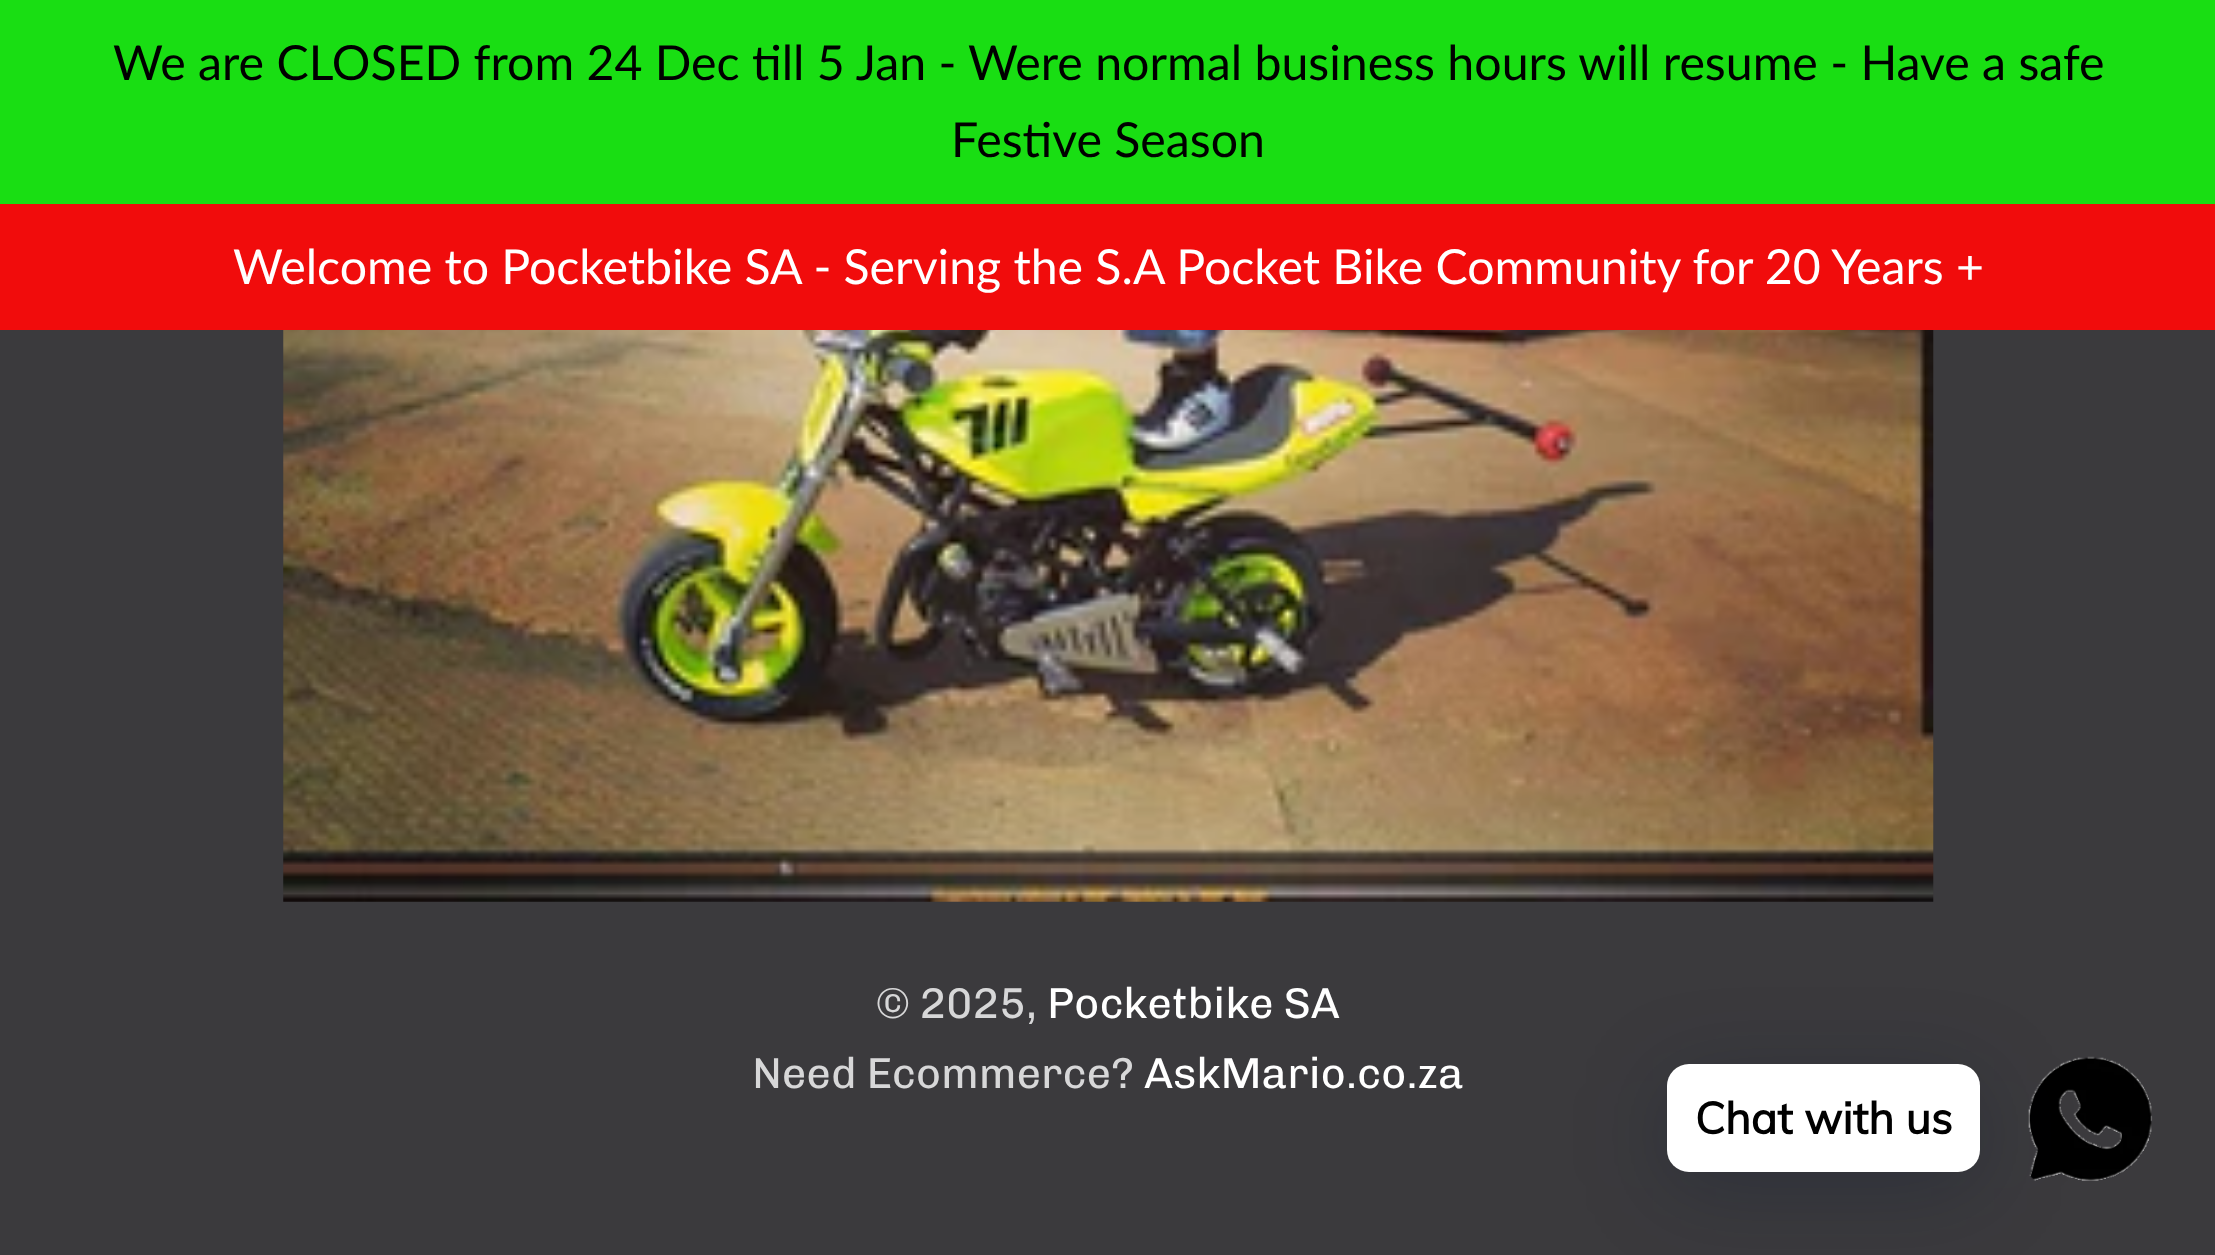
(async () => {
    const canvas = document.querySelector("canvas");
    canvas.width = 2215;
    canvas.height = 1255;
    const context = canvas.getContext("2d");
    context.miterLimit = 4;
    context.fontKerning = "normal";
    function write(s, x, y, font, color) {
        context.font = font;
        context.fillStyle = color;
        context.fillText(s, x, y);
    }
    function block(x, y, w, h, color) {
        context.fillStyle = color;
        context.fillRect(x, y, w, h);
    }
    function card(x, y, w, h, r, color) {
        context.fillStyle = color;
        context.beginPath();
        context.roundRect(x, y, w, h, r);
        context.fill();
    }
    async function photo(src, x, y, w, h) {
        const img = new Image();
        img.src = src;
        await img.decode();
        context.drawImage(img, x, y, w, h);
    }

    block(0, 0, 2215, 1255, "rgb(59, 58, 61)");
    block(0, 0, 2215, 204, "rgb(25, 222, 19)");
    write("We are CLOSED from 24 Dec till 5 Jan - Were normal business hours will resume - Have a safe", 113, 80, "48.25px Lato", "rgb(0, 0, 0)");
    write("Festive Season", 951, 157, "48.25px Lato", "rgb(0, 0, 0)");
    block(0, 204, 2215, 126, "rgb(241, 12, 12)");
    context.wordSpacing = "-0.1px";
    write("Welcome to Pocketbike SA - Serving the S.A Pocket Bike Community for 20 Years +", 233, 284, "48.25px Lato", "rgb(255, 255, 255)");
    await photo("media/1.png", 283, 330, 1651, 572);
    context.wordSpacing = "0px";
    write("© 2025,", 876, 1018, "43.25px Chivo", "rgb(215, 215, 216)");
    write("Pocketbike SA", 1047, 1018, "43.25px Chivo", "rgb(255, 255, 255)");
    write("Need Ecommerce?", 752, 1088, "43.25px Chivo", "rgb(215, 215, 216)");
    write("AskMario.co.za", 1144, 1088, "43.25px Chivo", "rgb(255, 255, 255)");
    await photo("media/2.png", 2028, 1056, 125, 125);
    context.fillStyle = "rgba(0, 18, 46, 0.24)";
    context.filter = "blur(44px)";
    context.beginPath();
    context.roundRect(1667, 1081, 313, 107, 22);
    context.fill();
    context.filter = "none";
    card(1667, 1064, 313, 108, 22, "rgb(255, 255, 255)");
    write("Chat with us", 1695, 1134, "bold 44px Muli", "rgb(0, 0, 0)");
})();
